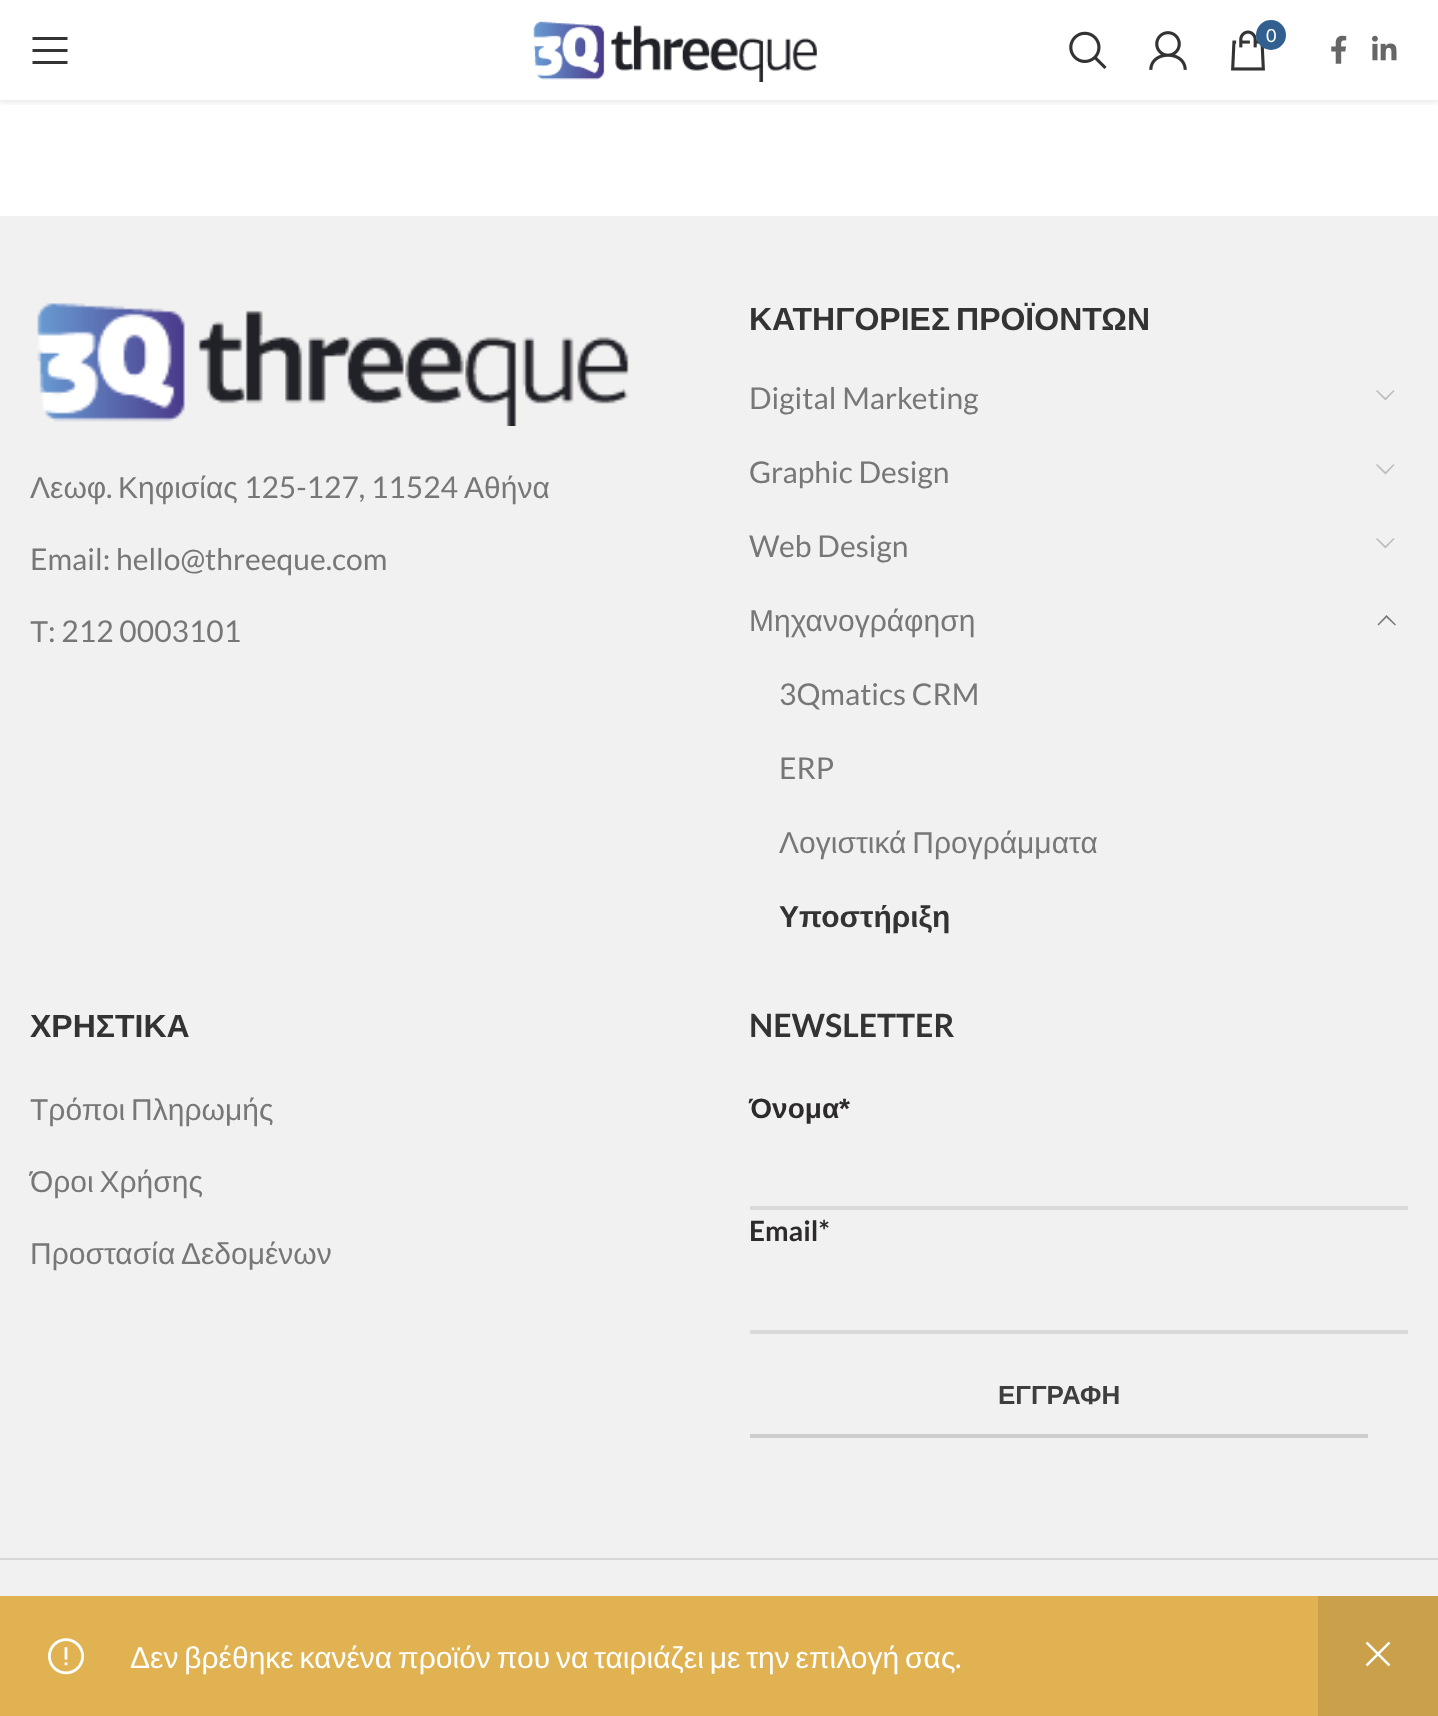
(async () => {
    const canvas = document.querySelector("canvas");
    canvas.width = 1438;
    canvas.height = 1716;
    const context = canvas.getContext("2d");
    context.miterLimit = 4;
    context.fontKerning = "normal";
    function write(s, x, y, font, color) {
        context.font = font;
        context.fillStyle = color;
        context.fillText(s, x, y);
    }
    function block(x, y, w, h, color) {
        context.fillStyle = color;
        context.fillRect(x, y, w, h);
    }
    async function photo(src, x, y, w, h) {
        const img = new Image();
        img.src = src;
        await img.decode();
        context.drawImage(img, x, y, w, h);
    }

    block(0, 0, 1438, 1716, "rgb(255, 255, 255)");
    context.save();
    context.beginPath();
    context.rect(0, 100, 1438, 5);
    context.clip();
    context.fillStyle = "rgba(0, 0, 0, 0.1)";
    context.filter = "blur(3px)";
    context.beginPath();
    context.rect(0, 2, 1438, 100);
    context.fill();
    context.filter = "none";
    context.restore();
    await photo("media/1.png", 533, 21, 284, 61);
    await photo("media/2.png", 1069, 31, 38, 38);
    await photo("media/3.png", 1149, 31, 38, 39);
    await photo("media/4.png", 1231, 30, 34, 41);
    context.fillStyle = "rgb(49, 96, 144)";
    context.beginPath();
    context.arc(1271, 35, 15, 0, Math.PI * 2);
    context.fill();
    write("0", 1266, 42, "18px Lato", "rgb(255, 255, 255)");
    await photo("media/5.png", 1331, 35, 16, 29);
    await photo("media/6.png", 1372, 35, 25, 26);
    context.fillStyle = "rgb(51, 51, 51)";
    context.beginPath();
    context.moveTo(32.5, 40);
    context.lineTo(67.5, 40);
    context.lineTo(67.5, 37);
    context.lineTo(32.5, 37);
    context.closePath();
    context.moveTo(32.5, 52);
    context.lineTo(67.5, 52);
    context.lineTo(67.5, 49);
    context.lineTo(32.5, 49);
    context.closePath();
    context.moveTo(32.5, 64);
    context.lineTo(67.5, 64);
    context.lineTo(67.5, 61);
    context.lineTo(32.5, 61);
    context.closePath();
    context.fill();
    block(0, 216, 1438, 1380, "rgb(241, 241, 241)");
    await photo("media/7.png", 37, 303, 592, 123);
    write("Λεωφ", 30, 498, "30px Liberation Sans", "rgb(119, 119, 119)");
    write(".", 106, 498, "30px Lato", "rgb(119, 119, 119)");
    write("Κηφισίας", 118, 498, "30px Liberation Sans", "rgb(119, 119, 119)");
    write("125-127, 11524", 244, 498, "30px Lato", "rgb(119, 119, 119)");
    write("Αθήνα", 464, 498, "30px Liberation Sans", "rgb(119, 119, 119)");
    write("Email: hello@threeque.com", 30, 570, "30px Lato", "rgb(119, 119, 119)");
    write("Τ", 30, 642, "30px Liberation Sans", "rgb(119, 119, 119)");
    write(": 212 0003101", 48, 642, "30px Lato", "rgb(119, 119, 119)");
    context.wordSpacing = "-3px";
    write("ΚΑΤΗΓΟΡΙΕΣ ΠΡΟΪΟΝΤΩΝ", 749, 330, "bold 32px Liberation Sans", "rgb(51, 51, 51)");
    context.wordSpacing = "0px";
    write("Digital Marketing", 749, 409, "30px Lato", "rgb(119, 119, 119)");
    context.fillStyle = "rgb(187, 187, 187)";
    context.beginPath();
    context.moveTo(1393.5, 390);
    context.lineTo(1385.5, 398);
    context.lineTo(1377, 390);
    context.lineTo(1376, 391);
    context.lineTo(1385.5, 400.5);
    context.lineTo(1394.5, 391);
    context.closePath();
    context.fill();
    write("Graphic Design", 749, 483, "30px Lato", "rgb(119, 119, 119)");
    context.fillStyle = "rgb(187, 187, 187)";
    context.beginPath();
    context.moveTo(1393.5, 464);
    context.lineTo(1385.5, 472);
    context.lineTo(1377, 464);
    context.lineTo(1376, 465);
    context.lineTo(1385.5, 474.5);
    context.lineTo(1394.5, 465);
    context.closePath();
    context.fill();
    write("Web Design", 749, 557, "30px Lato", "rgb(119, 119, 119)");
    context.fillStyle = "rgb(187, 187, 187)";
    context.beginPath();
    context.moveTo(1393.5, 538);
    context.lineTo(1385.5, 546);
    context.lineTo(1377, 538);
    context.lineTo(1376, 539);
    context.lineTo(1385.5, 548.5);
    context.lineTo(1394.5, 539);
    context.closePath();
    context.fill();
    write("Μηχανογράφηση", 749, 631, "30px Liberation Sans", "rgb(119, 119, 119)");
    context.beginPath();
    context.moveTo(1378.5, 625.5);
    context.lineTo(1386.5, 617.5);
    context.lineTo(1395, 625.5);
    context.lineTo(1396, 624.5);
    context.lineTo(1386.5, 615);
    context.lineTo(1377.5, 624.5);
    context.closePath();
    context.fill();
    write("3Qmatics CRM", 779, 705, "30px Lato", "rgb(119, 119, 119)");
    write("ERP", 779, 779, "30px Lato", "rgb(119, 119, 119)");
    context.wordSpacing = "-2.5px";
    write("Λογιστικά Προγράμματα", 779, 853, "30px Liberation Sans", "rgb(119, 119, 119)");
    context.wordSpacing = "0px";
    write("Υποστήριξη", 779, 927, "bold 30px Liberation Sans", "rgb(51, 51, 51)");
    write("ΧΡΗΣΤΙΚΑ", 30, 1037, "bold 32px Liberation Sans", "rgb(51, 51, 51)");
    context.wordSpacing = "-2.5px";
    write("Τρόποι Πληρωμής", 30, 1120, "30px Liberation Sans", "rgb(119, 119, 119)");
    write("Όροι Χρήσης", 30, 1192, "30px Liberation Sans", "rgb(119, 119, 119)");
    context.wordSpacing = "-1px";
    write("Προστασία Δεδομένων", 30, 1264, "30px Liberation Sans", "rgb(119, 119, 119)");
    context.wordSpacing = "0px";
    write("NEWSLETTER", 749, 1037, "bold 32px Lato", "rgb(51, 51, 51)");
    write("Όνομα*", 749, 1118, "bold 28px Liberation Sans", "rgb(45, 42, 42)");
    block(750, 1206, 658, 4, "rgb(217, 217, 217)");
    write("Email*", 749, 1241, "bold 28px Lato", "rgb(45, 42, 42)");
    block(750, 1330, 658, 4, "rgb(217, 217, 217)");
    block(750, 1434, 618, 4, "rgb(205, 205, 205)");
    write("ΕΓΓΡΑΦΗ", 998, 1404, "bold 26px Liberation Sans", "rgb(62, 62, 62)");
    block(0, 1558, 1438, 2, "rgb(215, 215, 215)");
    block(0, 1596, 1318, 120, "rgb(224, 178, 82)");
    await photo("media/8.png", 48, 1638, 36, 37);
    context.wordSpacing = "-2.5px";
    write("Δεν βρέθηκε κανένα προϊόν που να ταιριάζει με την επιλογή σας", 130, 1668, "30px Liberation Sans", "rgb(255, 255, 255)");
    context.wordSpacing = "0px";
    write(".", 955, 1668, "30px Lato", "rgb(255, 255, 255)");
    block(1318, 1596, 120, 120, "rgb(202, 160, 74)");
    await photo("media/9.png", 1365, 1641, 26, 26);
})();
